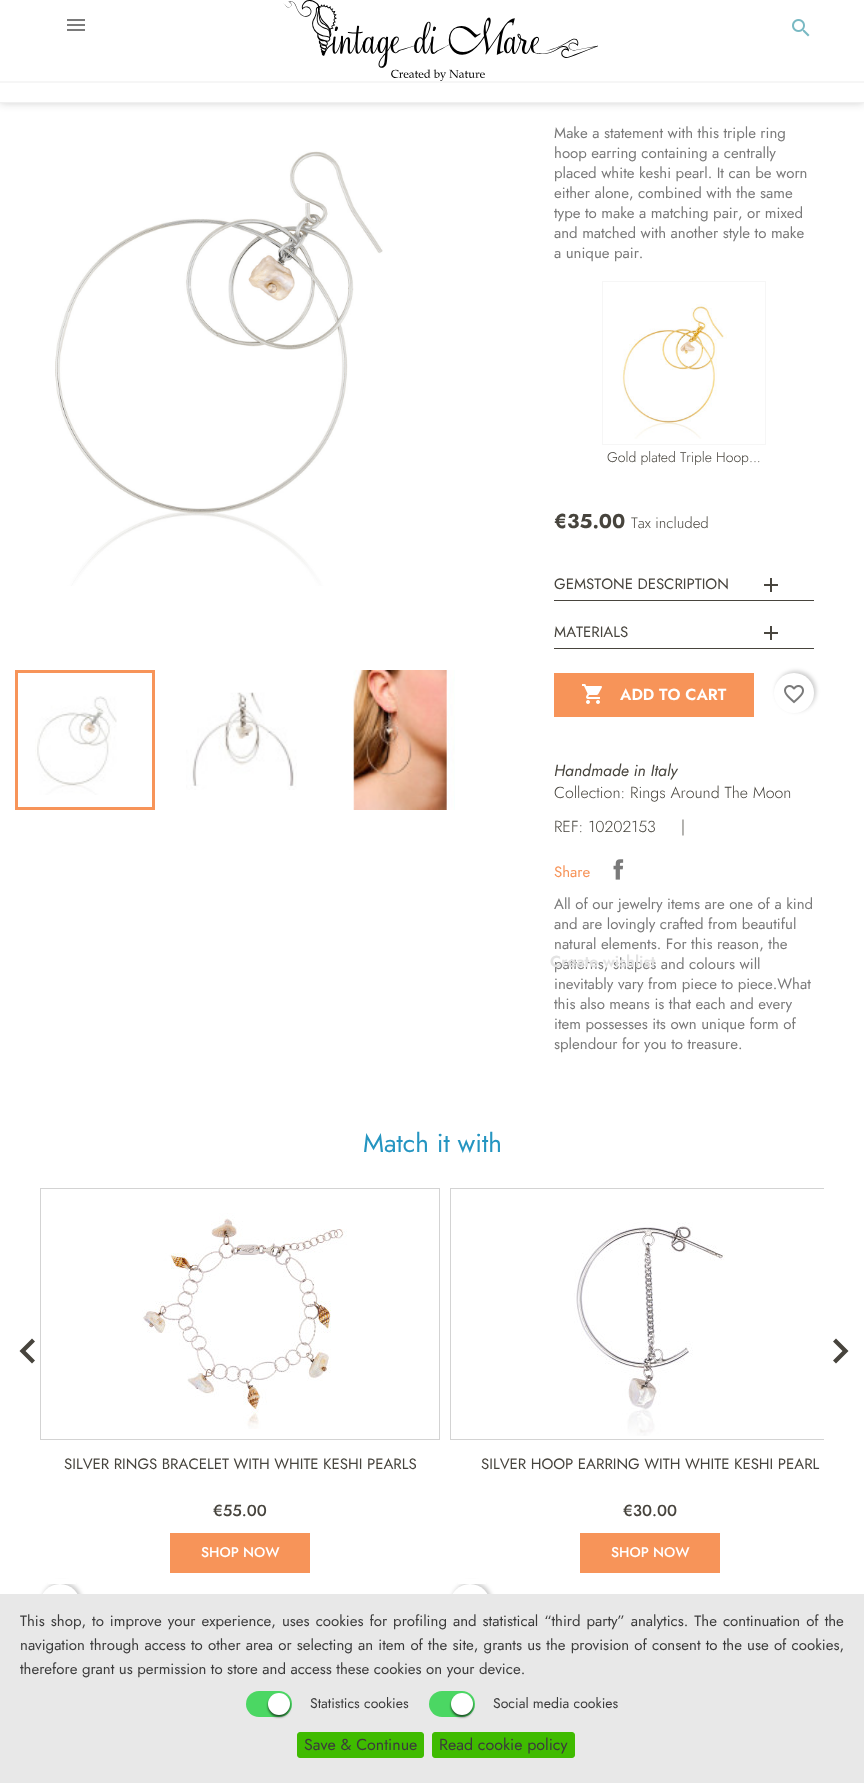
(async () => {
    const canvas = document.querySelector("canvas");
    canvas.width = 864;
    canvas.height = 1783;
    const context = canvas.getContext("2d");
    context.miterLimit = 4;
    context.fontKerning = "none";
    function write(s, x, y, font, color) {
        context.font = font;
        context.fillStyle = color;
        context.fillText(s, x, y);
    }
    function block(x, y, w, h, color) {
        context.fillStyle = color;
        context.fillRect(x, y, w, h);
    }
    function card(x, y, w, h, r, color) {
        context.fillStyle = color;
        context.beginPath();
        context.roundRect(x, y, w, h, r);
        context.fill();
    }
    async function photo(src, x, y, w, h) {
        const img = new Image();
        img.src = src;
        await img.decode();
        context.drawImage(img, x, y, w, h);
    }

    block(0, 0, 864, 1783, "rgb(255, 255, 255)");
    context.fillStyle = "rgba(20, 20, 20, 0.2)";
    context.filter = "blur(4px)";
    context.beginPath();
    context.rect(0, 0, 864, 103);
    context.fill();
    context.filter = "none";
    block(0, 0, 864, 102, "rgb(255, 255, 255)");
    block(0, 102, 864, 1, "rgb(240, 240, 240)");
    block(0, 81, 864, 2, "rgb(246, 246, 246)");
    await photo("media/1.png", 67, 19, 18, 12);
    await photo("media/2.png", 283, 0, 315, 81);
    await photo("media/3.png", 792, 19, 18, 18);
    await photo("media/4.png", 55, 151, 328, 435);
    context.strokeStyle = "rgb(247, 148, 89)";
    context.lineWidth = 3;
    context.strokeRect(16.5, 671.5, 137, 137);
    await photo("media/5.png", 186, 692, 111, 98);
    await photo("media/6.png", 353, 670, 102, 140);
    await photo("media/7.png", 35, 696, 82, 99);
    write("Make a statement with this triple ring", 554, 138, "15px Jost", "rgb(122, 122, 122)");
    write("hoop earring containing a centrally", 554, 158, "15px Jost", "rgb(122, 122, 122)");
    write("placed white keshi pearl. It can be worn", 554, 178, "15px Jost", "rgb(122, 122, 122)");
    write("either alone, combined with the same", 554, 198, "15px Jost", "rgb(122, 122, 122)");
    write("type to make a matching pair, or mixed", 554, 218, "15px Jost", "rgb(122, 122, 122)");
    write("and matched with another style to make", 554, 238, "15px Jost", "rgb(122, 122, 122)");
    write("a unique pair.", 554, 258, "15px Jost", "rgb(122, 122, 122)");
    context.strokeStyle = "rgb(246, 246, 246)";
    context.lineWidth = 1;
    context.strokeRect(602.5, 281.5, 163, 163);
    await photo("media/8.png", 620, 304, 107, 135);
    write("Gold plated Triple Hoop...", 607, 462, "300 14px Jost", "rgb(71, 68, 61)");
    write("€35.00", 554, 528, "bold 20px Jost", "rgb(71, 68, 61)");
    write("Tax included", 631, 528, "300 15px Jost", "rgb(71, 68, 61)");
    block(554, 600, 260, 1, "rgb(71, 68, 61)");
    write("GEMSTONE DESCRIPTION", 554, 589, "15px Jost", "rgb(71, 68, 61)");
    await photo("media/9.png", 764, 578, 14, 14);
    block(554, 648, 260, 1, "rgb(71, 68, 61)");
    write("MATERIALS", 554, 637, "15px Jost", "rgb(71, 68, 61)");
    await photo("media/9.png", 764, 626, 14, 14);
    block(554, 673, 200, 44, "rgb(247, 148, 89)");
    await photo("media/10.png", 582, 684, 20, 20);
    write("ADD TO CART", 620, 700, "600 16px Jost", "rgb(255, 255, 255)");
    context.fillStyle = "rgba(0, 0, 0, 0.2)";
    context.filter = "blur(2px)";
    context.beginPath();
    context.roundRect(776, 671, 40, 40, 20);
    context.fill();
    context.filter = "none";
    context.fillStyle = "rgb(255, 255, 255)";
    context.beginPath();
    context.arc(794, 693, 20, 0, Math.PI * 2);
    context.fill();
    await photo("media/11.png", 784, 685, 20, 19);
    write("Handmade in Italy", 554, 776, "italic 16px Jost", "rgb(71, 68, 61)");
    write("Collection: Rings Around The Moon", 554, 798, "300 16px Jost", "rgb(71, 68, 61)");
    write("REF: 10202153", 554, 832, "300 16px Jost", "rgb(71, 68, 61)");
    write("|", 681, 832, "300 16px Jost", "rgb(71, 68, 61)");
    write("Share", 554, 877, "15px Jost", "rgb(247, 148, 89)");
    await photo("media/12.png", 613, 859, 11, 21);
    write("All of our jewelry items are one of a kind", 554, 909, "15px Jost", "rgb(122, 122, 122)");
    write("and are lovingly crafted from beautiful", 554, 929, "15px Jost", "rgb(122, 122, 122)");
    write("natural elements. For this reason, the", 554, 949, "15px Jost", "rgb(122, 122, 122)");
    write("patterns, shapes and colours will", 554, 969, "15px Jost", "rgb(122, 122, 122)");
    write("inevitably vary from piece to piece.What", 554, 989, "15px Jost", "rgb(122, 122, 122)");
    write("this also means is that each and every", 554, 1009, "15px Jost", "rgb(122, 122, 122)");
    write("item possesses its own unique form of", 554, 1029, "15px Jost", "rgb(122, 122, 122)");
    write("splendour for you to treasure.", 554, 1049, "15px Jost", "rgb(122, 122, 122)");
    write("Match it with", 363, 1152, "26px Jost", "rgb(37, 149, 193)");
    context.fillStyle = "rgb(71, 68, 61)";
    context.beginPath();
    context.moveTo(35, 1341.5);
    context.lineTo(25.5, 1351);
    context.lineTo(35, 1360.5);
    context.lineTo(32, 1363.5);
    context.lineTo(19.5, 1351);
    context.lineTo(32, 1338.5);
    context.closePath();
    context.fill();
    context.save();
    context.beginPath();
    context.rect(450, 1188, 374, 436);
    context.clip();
    context.strokeStyle = "rgb(211, 211, 211)";
    context.strokeRect(450.5, 1188.5, 399, 251);
    context.restore();
    context.beginPath();
    context.moveTo(836, 1338.5);
    context.lineTo(848.5, 1351);
    context.lineTo(836, 1363.5);
    context.lineTo(833, 1360.5);
    context.lineTo(842.5, 1351);
    context.lineTo(833, 1341.5);
    context.closePath();
    context.fill();
    context.strokeStyle = "rgb(211, 211, 211)";
    context.strokeRect(40.5, 1188.5, 399, 251);
    await photo("media/13.png", 142, 1213, 205, 216);
    context.fillStyle = "rgba(0, 0, 0, 0.2)";
    context.filter = "blur(2px)";
    context.beginPath();
    context.roundRect(42, 1582, 40, 40, 20);
    context.fill();
    context.filter = "none";
    block(48, 1579, 28, 5, "rgb(255, 255, 255)");
    write("SILVER RINGS BRACELET WITH WHITE KESHI PEARLS", 64, 1469, "15px Jost", "rgb(71, 68, 61)");
    write("€55.00", 213, 1516, "500 16px Jost", "rgb(71, 68, 61)");
    block(170, 1533, 140, 40, "rgb(247, 148, 89)");
    write("SHOP NOW", 201, 1557, "500 14px Jost", "rgb(255, 255, 255)");
    context.beginPath();
    context.arc(60, 1604, 20, 0, Math.PI * 2);
    context.fill();
    await photo("media/14.png", 574, 1222, 151, 214);
    context.fillStyle = "rgba(0, 0, 0, 0.2)";
    context.filter = "blur(2px)";
    context.beginPath();
    context.roundRect(452, 1582, 40, 40, 20);
    context.fill();
    context.filter = "none";
    block(458, 1579, 28, 5, "rgb(255, 255, 255)");
    write("SILVER HOOP EARRING WITH WHITE KESHI PEARL", 481, 1469, "15px Jost", "rgb(71, 68, 61)");
    write("€30.00", 623, 1516, "500 16px Jost", "rgb(71, 68, 61)");
    block(580, 1533, 140, 40, "rgb(247, 148, 89)");
    write("SHOP NOW", 611, 1557, "500 14px Jost", "rgb(255, 255, 255)");
    context.beginPath();
    context.arc(470, 1604, 20, 0, Math.PI * 2);
    context.fill();
    write("Create wishlist", 550, 967, "600 16px Jost", "rgb(227, 227, 227)");
    block(0, 1594, 864, 189, "rgb(232, 232, 232)");
    context.wordSpacing = "1.5px";
    write("This shop, to improve your experience, uses cookies for profiling and statistical “third party” analytics. The continuation of the", 20, 1626, "15px Jost", "rgb(59, 59, 59)");
    context.wordSpacing = "0.7px";
    write("navigation through access to other area or selecting an item of the site, grants us the provision of consent to the use of cookies,", 20, 1650, "15px Jost", "rgb(59, 59, 59)");
    context.wordSpacing = "0px";
    write("therefore grant us permission to store and access these cookies on your device.", 20, 1674, "15px Jost", "rgb(59, 59, 59)");
    card(246, 1691, 46, 26, 13, "rgb(75, 215, 99)");
    context.fillStyle = "rgba(0, 0, 0, 0.65)";
    context.filter = "blur(1px)";
    context.beginPath();
    context.roundRect(268, 1695, 22, 22, 11);
    context.fill();
    context.filter = "none";
    context.fillStyle = "rgb(255, 255, 255)";
    context.beginPath();
    context.arc(279, 1704, 11, 0, Math.PI * 2);
    context.fill();
    write("Statistics cookies", 310, 1708, "14px Jost", "rgb(59, 59, 59)");
    card(429, 1691, 46, 26, 13, "rgb(75, 215, 99)");
    context.fillStyle = "rgba(0, 0, 0, 0.65)";
    context.filter = "blur(1px)";
    context.beginPath();
    context.roundRect(451, 1695, 22, 22, 11);
    context.fill();
    context.filter = "none";
    context.fillStyle = "rgb(255, 255, 255)";
    context.beginPath();
    context.arc(462, 1704, 11, 0, Math.PI * 2);
    context.fill();
    write("Social media cookies", 493, 1708, "14px Jost", "rgb(59, 59, 59)");
    context.fillStyle = "rgb(63, 187, 0)";
    context.beginPath();
    context.roundRect(297.5, 1732.5, 126, 25, 2.5);
    context.fill();
    context.strokeStyle = "rgb(63, 187, 0)";
    context.stroke();
    write("Save & Continue", 304, 1750, "16px Jost", "rgb(59, 59, 59)");
    context.fillStyle = "rgb(63, 187, 0)";
    context.beginPath();
    context.roundRect(432.5, 1732.5, 142, 25, 2.5);
    context.fill();
    context.stroke();
    write("Read cookie policy", 439, 1750, "16px Jost", "rgb(59, 59, 59)");
})();
